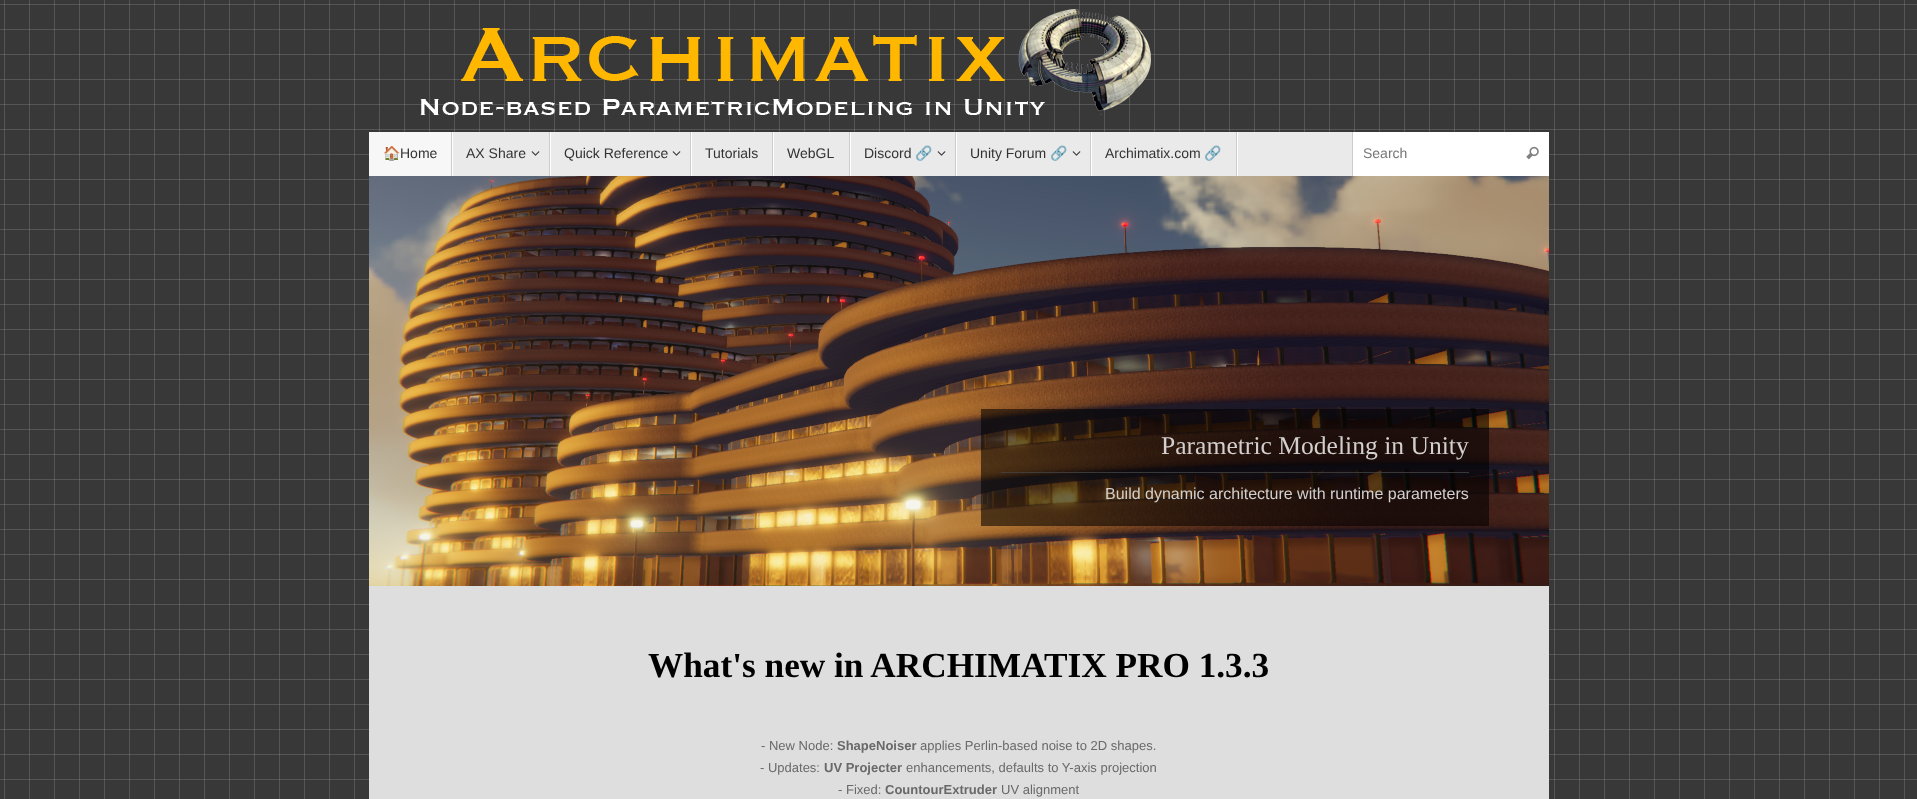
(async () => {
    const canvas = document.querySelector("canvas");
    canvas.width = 1917;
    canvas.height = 799;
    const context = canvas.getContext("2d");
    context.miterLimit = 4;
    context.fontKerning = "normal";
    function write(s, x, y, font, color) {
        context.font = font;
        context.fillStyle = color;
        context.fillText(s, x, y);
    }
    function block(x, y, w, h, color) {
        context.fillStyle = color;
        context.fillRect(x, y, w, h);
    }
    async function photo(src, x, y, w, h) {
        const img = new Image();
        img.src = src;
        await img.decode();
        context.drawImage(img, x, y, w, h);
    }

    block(0, 0, 1917, 799, "rgb(255, 255, 255)");
    await photo("media/1.png", 0, 0, 1917, 799);
    await photo("media/2.png", 420, 9, 731, 106);
    block(453, 132, 899, 44, "rgb(234, 234, 234)");
    block(369, 132, 82, 44, "rgb(247, 247, 247)");
    block(452, 132, 1, 44, "rgb(255, 255, 255)");
    block(451, 132, 1, 44, "rgb(204, 204, 204)");
    write("🏠", 383, 158, "14px Noto Color Emoji", "rgb(51, 51, 51)");
    write("Home", 400, 158, "14px Liberation Sans", "rgb(51, 51, 51)");
    block(550, 132, 1, 44, "rgb(255, 255, 255)");
    block(549, 132, 1, 44, "rgb(204, 204, 204)");
    write("AX Share", 466, 158, "14px Liberation Sans", "rgb(51, 51, 51)");
    await photo("media/3.png", 531, 151, 9, 5);
    block(691, 132, 1, 44, "rgb(255, 255, 255)");
    block(690, 132, 1, 44, "rgb(204, 204, 204)");
    write("Quick Reference", 564, 158, "14px Liberation Sans", "rgb(51, 51, 51)");
    await photo("media/3.png", 672, 151, 9, 5);
    block(773, 132, 1, 44, "rgb(255, 255, 255)");
    block(772, 132, 1, 44, "rgb(204, 204, 204)");
    write("Tutorials", 705, 158, "14px Liberation Sans", "rgb(51, 51, 51)");
    block(850, 132, 1, 44, "rgb(255, 255, 255)");
    block(849, 132, 1, 44, "rgb(204, 204, 204)");
    write("WebGL", 787, 158, "14px Liberation Sans", "rgb(51, 51, 51)");
    block(956, 132, 1, 44, "rgb(255, 255, 255)");
    block(955, 132, 1, 44, "rgb(204, 204, 204)");
    write("Discord", 864, 158, "14px Liberation Sans", "rgb(51, 51, 51)");
    write("🔗", 915, 158, "14px Noto Color Emoji", "rgb(51, 51, 51)");
    await photo("media/3.png", 937, 151, 9, 5);
    block(1091, 132, 1, 44, "rgb(255, 255, 255)");
    block(1090, 132, 1, 44, "rgb(204, 204, 204)");
    write("Unity Forum", 970, 158, "14px Liberation Sans", "rgb(51, 51, 51)");
    write("🔗", 1050, 158, "14px Noto Color Emoji", "rgb(51, 51, 51)");
    await photo("media/3.png", 1072, 151, 9, 5);
    block(1237, 132, 1, 44, "rgb(255, 255, 255)");
    block(1236, 132, 1, 44, "rgb(204, 204, 204)");
    write("Archimatix.com", 1105, 158, "14px Liberation Sans", "rgb(51, 51, 51)");
    write("🔗", 1204, 158, "14px Noto Color Emoji", "rgb(51, 51, 51)");
    block(1353, 132, 196, 44, "rgb(255, 255, 255)");
    block(1352, 132, 1, 44, "rgb(204, 204, 204)");
    write("Search", 1363, 158, "14px Liberation Sans", "rgb(117, 117, 117)");
    await photo("media/4.png", 1526, 146, 13, 14);
    block(369, 586, 1180, 213, "rgb(222, 222, 222)");
    await photo("media/5.png", 369, 176, 1180, 410);
    block(981, 409, 508, 117, "rgba(0, 0, 0, 0.56)");
    block(1001, 472, 468, 1, "rgba(68, 68, 68, 0.8)");
    write("Parametric Modeling in Unity", 1161, 454, "25.6px Liberation Serif", "rgb(211, 207, 206)");
    write("Build dynamic architecture with runtime parameters", 1105, 499, "16px Liberation Sans", "rgb(211, 207, 206)");
    write("What's new in ARCHIMATIX PRO 1.3.3", 648, 677, "bold 35.25px Liberation Serif", "rgb(0, 0, 0)");
    write("- New Node:", 761, 750, "13px Liberation Sans", "rgb(105, 105, 105)");
    write("ShapeNoiser", 837, 750, "bold 13px Liberation Sans", "rgb(105, 105, 105)");
    write("applies Perlin-based noise to 2D shapes.", 920, 750, "13px Liberation Sans", "rgb(105, 105, 105)");
    write("- Updates:", 760, 772, "13px Liberation Sans", "rgb(105, 105, 105)");
    write("UV Projecter", 824, 772, "bold 13px Liberation Sans", "rgb(105, 105, 105)");
    write("enhancements, defaults to Y-axis projection", 906, 772, "13px Liberation Sans", "rgb(105, 105, 105)");
    write("- Fixed:", 838, 794, "13px Liberation Sans", "rgb(105, 105, 105)");
    write("CountourExtruder", 885, 794, "bold 13px Liberation Sans", "rgb(105, 105, 105)");
    write("UV alignment", 1001, 794, "13px Liberation Sans", "rgb(105, 105, 105)");
})();
